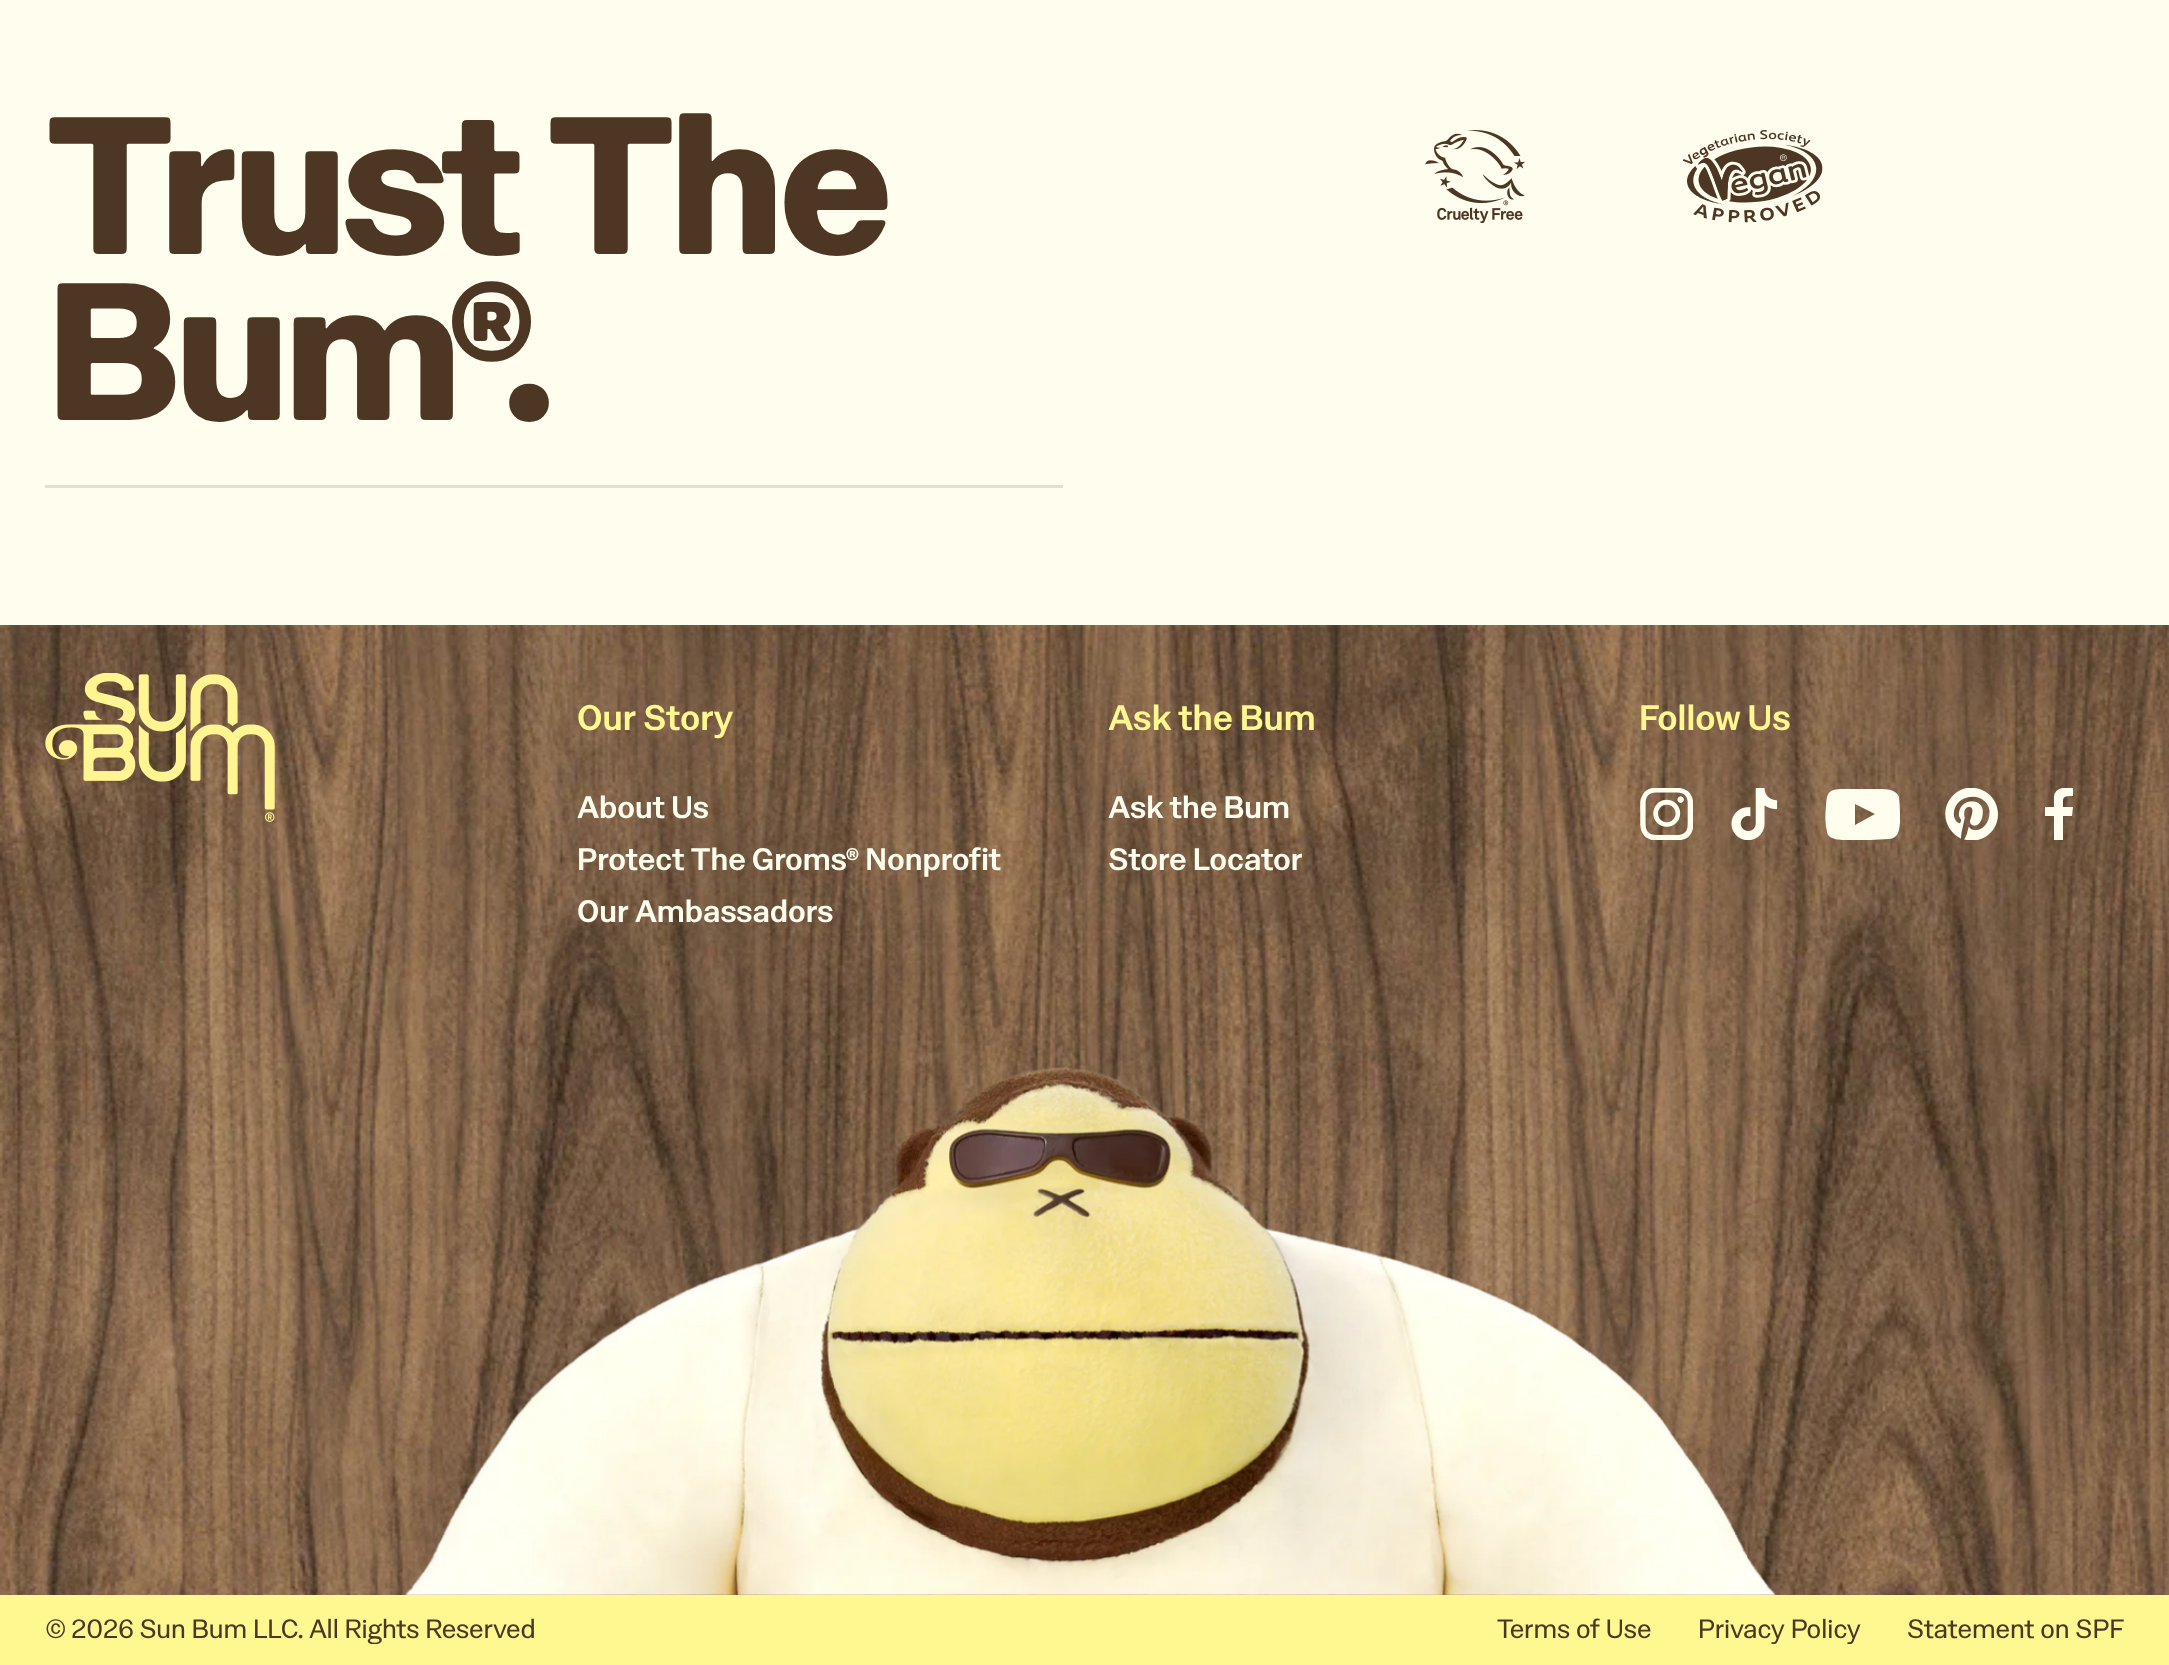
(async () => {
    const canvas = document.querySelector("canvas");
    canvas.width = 2169;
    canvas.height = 1665;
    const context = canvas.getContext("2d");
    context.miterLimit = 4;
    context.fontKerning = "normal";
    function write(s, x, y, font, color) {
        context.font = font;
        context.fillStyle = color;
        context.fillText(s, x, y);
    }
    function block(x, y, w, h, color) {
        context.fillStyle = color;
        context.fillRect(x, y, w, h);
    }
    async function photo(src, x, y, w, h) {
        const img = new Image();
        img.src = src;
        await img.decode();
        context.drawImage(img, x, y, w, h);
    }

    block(0, 0, 2169, 1665, "rgb(255, 254, 238)");
    context.letterSpacing = "-5.75px";
    write("Trust The", 46, 254, "bold 195.5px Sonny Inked", "rgb(78, 54, 37)");
    write("Bum®.", 46, 420, "bold 195.5px Sonny Inked", "rgb(78, 54, 37)");
    await photo("media/1.png", 1425, 130, 100, 93);
    await photo("media/2.png", 1683, 130, 140, 93);
    block(45, 485, 1018, 3, "rgb(228, 224, 208)");
    await photo("media/3.png", 0, 625, 2169, 970);
    await photo("media/4.png", 45, 673, 230, 149);
    context.letterSpacing = "0px";
    write("Our Story", 577, 730, "500 35.5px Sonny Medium", "rgb(255, 248, 144)");
    write("About Us", 577, 818, "500 31.1px Sonny Medium", "rgb(255, 254, 238)");
    write("Protect The Groms® Nonprofit", 577, 870, "500 31.1px Sonny Medium", "rgb(255, 254, 238)");
    write("Our Ambassadors", 577, 922, "500 31.1px Sonny Medium", "rgb(255, 254, 238)");
    write("Ask the Bum", 1108, 730, "500 35.5px Sonny Medium", "rgb(255, 248, 144)");
    write("Ask the Bum", 1108, 818, "500 31.1px Sonny Medium", "rgb(255, 254, 238)");
    write("Store Locator", 1108, 870, "500 31.1px Sonny Medium", "rgb(255, 254, 238)");
    write("Follow Us", 1639, 730, "500 35.5px Sonny Medium", "rgb(255, 248, 144)");
    await photo("media/5.png", 1640, 788, 53, 52);
    await photo("media/6.png", 1731, 788, 47, 52);
    context.fillStyle = "rgb(255, 254, 238)";
    context.beginPath();
    context.moveTo(1899, 797);
    context.bezierCurveTo(1896, 788, 1882, 789, 1875, 789);
    context.lineTo(1855, 789);
    context.lineTo(1840, 789);
    context.bezierCurveTo(1828, 790, 1827, 793, 1826, 806);
    context.bezierCurveTo(1825, 814, 1825, 823, 1827, 832);
    context.bezierCurveTo(1828, 841, 1845, 840, 1850, 840);
    context.lineTo(1870, 840);
    context.lineTo(1889, 839);
    context.bezierCurveTo(1898, 838, 1899, 832, 1900, 823);
    context.bezierCurveTo(1900, 814, 1900, 806, 1899, 797);
    context.closePath();
    context.moveTo(1855, 825);
    context.lineTo(1855, 804);
    context.lineTo(1875, 814);
    context.closePath();
    context.fill();
    await photo("media/7.png", 1945, 788, 53, 52);
    context.save();
    context.beginPath();
    context.rect(2033, 788, 53, 52);
    context.clip();
    context.beginPath();
    context.moveTo(2063, 841);
    context.lineTo(2063, 816);
    context.lineTo(2072, 816);
    context.lineTo(2073, 807);
    context.lineTo(2063, 807);
    context.bezierCurveTo(2063, 797, 2062, 796, 2073, 796);
    context.lineTo(2073, 788);
    context.bezierCurveTo(2065, 787, 2055, 787, 2054, 797);
    context.lineTo(2054, 807);
    context.lineTo(2045, 807);
    context.lineTo(2045, 816);
    context.lineTo(2054, 816);
    context.lineTo(2054, 841);
    context.closePath();
    context.fill();
    context.restore();
    await photo("media/8.png", 405, 1066, 1371, 529);
    block(0, 1595, 2169, 70, "rgb(255, 248, 144)");
    write("© 2026 Sun Bum LLC. All Rights Reserved", 46, 1638, "26.6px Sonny", "rgb(78, 54, 37)");
    write("Terms of Use", 1497, 1638, "26.6px Sonny", "rgb(78, 54, 37)");
    write("Privacy Policy", 1698, 1638, "26.6px Sonny", "rgb(78, 54, 37)");
    write("Statement on SPF", 1907, 1638, "26.6px Sonny", "rgb(78, 54, 37)");
})();
